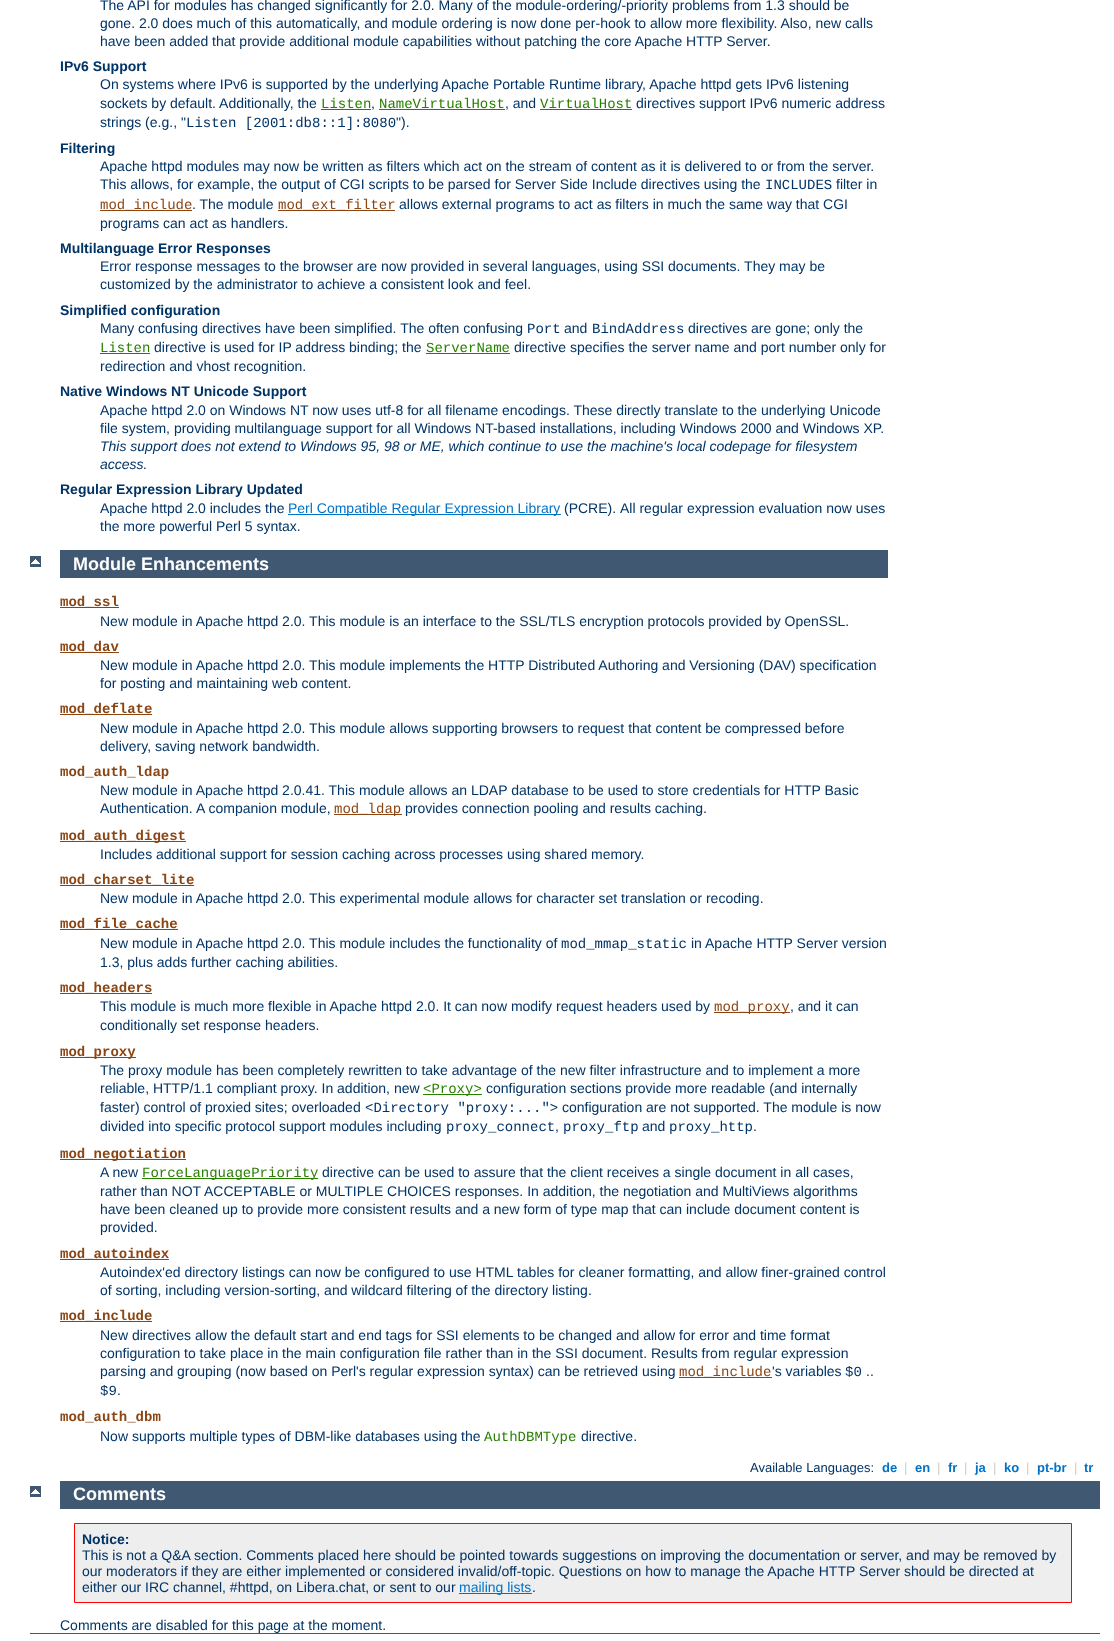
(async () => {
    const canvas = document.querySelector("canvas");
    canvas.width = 1114;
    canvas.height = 1641;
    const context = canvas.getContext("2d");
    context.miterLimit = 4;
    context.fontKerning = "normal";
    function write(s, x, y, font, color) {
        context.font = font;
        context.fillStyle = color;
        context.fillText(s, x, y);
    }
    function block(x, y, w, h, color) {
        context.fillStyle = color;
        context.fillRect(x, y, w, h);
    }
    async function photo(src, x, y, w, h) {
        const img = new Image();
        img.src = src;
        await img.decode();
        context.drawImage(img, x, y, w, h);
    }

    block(0, 0, 1114, 1641, "rgb(255, 255, 255)");
    write("The API for modules has changed significantly for 2.0. Many of the module-ordering/-priority problems from 1.3 should be", 100, 10, "14px Liberation Sans", "rgb(0, 51, 102)");
    write("gone. 2.0 does much of this automatically, and module ordering is now done per-hook to allow more flexibility. Also, new calls", 100, 28, "14px Liberation Sans", "rgb(0, 51, 102)");
    write("have been added that provide additional module capabilities without patching the core Apache HTTP Server.", 100, 46, "14px Liberation Sans", "rgb(0, 51, 102)");
    write("IPv6 Support", 60, 71, "bold 14px Liberation Sans", "rgb(0, 51, 102)");
    write("On systems where IPv6 is supported by the underlying Apache Portable Runtime library, Apache httpd gets IPv6 listening", 100, 89, "14px Liberation Sans", "rgb(0, 51, 102)");
    write("sockets by default. Additionally, the", 100, 108, "14px Liberation Sans", "rgb(0, 51, 102)");
    write("Listen", 321, 108, "14px Liberation Mono", "rgb(40, 127, 0)");
    block(321, 109, 50, 1, "rgb(40, 127, 0)");
    write(",", 371, 108, "14px Liberation Sans", "rgb(0, 51, 102)");
    write("NameVirtualHost", 379, 108, "14px Liberation Mono", "rgb(40, 127, 0)");
    block(379, 109, 126, 1, "rgb(40, 127, 0)");
    write(", and", 505, 108, "14px Liberation Sans", "rgb(0, 51, 102)");
    write("VirtualHost", 540, 108, "14px Liberation Mono", "rgb(40, 127, 0)");
    block(540, 109, 92, 1, "rgb(40, 127, 0)");
    write("directives support IPv6 numeric address", 636, 108, "14px Liberation Sans", "rgb(0, 51, 102)");
    write("strings (e.g., \"", 100, 127, "14px Liberation Sans", "rgb(0, 51, 102)");
    write("Listen [2001:db8::1]:8080", 186, 127, "14px Liberation Mono", "rgb(0, 51, 102)");
    write("\").", 396, 127, "14px Liberation Sans", "rgb(0, 51, 102)");
    write("Filtering", 60, 153, "bold 14px Liberation Sans", "rgb(0, 51, 102)");
    write("Apache httpd modules may now be written as filters which act on the stream of content as it is delivered to or from the server.", 100, 171, "14px Liberation Sans", "rgb(0, 51, 102)");
    write("This allows, for example, the output of CGI scripts to be parsed for Server Side Include directives using the", 100, 189, "14px Liberation Sans", "rgb(0, 51, 102)");
    write("INCLUDES", 765, 189, "14px Liberation Mono", "rgb(0, 51, 102)");
    write("filter in", 836, 189, "14px Liberation Sans", "rgb(0, 51, 102)");
    block(100, 210, 92, 1, "rgb(139, 69, 19)");
    write("mod_include", 100, 209, "14px Liberation Mono", "rgb(139, 69, 19)");
    write(". The module", 192, 209, "14px Liberation Sans", "rgb(0, 51, 102)");
    block(278, 210, 117, 1, "rgb(139, 69, 19)");
    write("mod_ext_filter", 278, 209, "14px Liberation Mono", "rgb(139, 69, 19)");
    write("allows external programs to act as filters in much the same way that CGI", 399, 209, "14px Liberation Sans", "rgb(0, 51, 102)");
    write("programs can act as handlers.", 100, 228, "14px Liberation Sans", "rgb(0, 51, 102)");
    write("Multilanguage Error Responses", 60, 253, "bold 14px Liberation Sans", "rgb(0, 51, 102)");
    write("Error response messages to the browser are now provided in several languages, using SSI documents. They may be", 100, 271, "14px Liberation Sans", "rgb(0, 51, 102)");
    write("customized by the administrator to achieve a consistent look and feel.", 100, 289, "14px Liberation Sans", "rgb(0, 51, 102)");
    write("Simplified configuration", 60, 315, "bold 14px Liberation Sans", "rgb(0, 51, 102)");
    write("Many confusing directives have been simplified. The often confusing", 100, 333, "14px Liberation Sans", "rgb(0, 51, 102)");
    write("Port", 527, 333, "14px Liberation Mono", "rgb(0, 51, 102)");
    write("and", 564, 333, "14px Liberation Sans", "rgb(0, 51, 102)");
    write("BindAddress", 592, 333, "14px Liberation Mono", "rgb(0, 51, 102)");
    write("directives are gone; only the", 688, 333, "14px Liberation Sans", "rgb(0, 51, 102)");
    write("Listen", 100, 352, "14px Liberation Mono", "rgb(40, 127, 0)");
    block(100, 353, 50, 1, "rgb(40, 127, 0)");
    write("directive is used for IP address binding; the", 154, 352, "14px Liberation Sans", "rgb(0, 51, 102)");
    write("ServerName", 426, 352, "14px Liberation Mono", "rgb(40, 127, 0)");
    block(426, 353, 84, 1, "rgb(40, 127, 0)");
    write("directive specifies the server name and port number only for", 514, 352, "14px Liberation Sans", "rgb(0, 51, 102)");
    write("redirection and vhost recognition.", 100, 371, "14px Liberation Sans", "rgb(0, 51, 102)");
    write("Native Windows NT Unicode Support", 60, 396, "bold 14px Liberation Sans", "rgb(0, 51, 102)");
    write("Apache httpd 2.0 on Windows NT now uses utf-8 for all filename encodings. These directly translate to the underlying Unicode", 100, 415, "14px Liberation Sans", "rgb(0, 51, 102)");
    write("file system, providing multilanguage support for all Windows NT-based installations, including Windows 2000 and Windows XP.", 100, 433, "14px Liberation Sans", "rgb(0, 51, 102)");
    write("This support does not extend to Windows 95, 98 or ME, which continue to use the machine's local codepage for filesystem", 100, 451, "italic 14px Liberation Sans", "rgb(0, 51, 102)");
    write("access.", 100, 469, "italic 14px Liberation Sans", "rgb(0, 51, 102)");
    write("Regular Expression Library Updated", 60, 494, "bold 14px Liberation Sans", "rgb(0, 51, 102)");
    write("Apache httpd 2.0 includes the", 100, 513, "14px Liberation Sans", "rgb(0, 51, 102)");
    block(288, 514, 273, 1, "rgb(0, 115, 199)");
    write("Perl Compatible Regular Expression Library", 288, 513, "14px Liberation Sans", "rgb(0, 115, 199)");
    write("(PCRE).", 564, 513, "14px Liberation Sans", "rgb(0, 51, 102)");
    write("All regular expression evaluation now uses", 620, 513, "14px Liberation Sans", "rgb(0, 51, 102)");
    write("the more powerful Perl 5 syntax.", 100, 531, "14px Liberation Sans", "rgb(0, 51, 102)");
    await photo("media/1.png", 30, 556, 11, 11);
    block(60, 550, 828, 28, "rgb(64, 88, 113)");
    write("Module Enhancements", 73, 570, "bold 18px Liberation Sans", "rgb(255, 255, 255)");
    block(60, 607, 59, 1, "rgb(139, 69, 19)");
    write("mod_ssl", 60, 606, "bold 14px Liberation Mono", "rgb(139, 69, 19)");
    write("New module in Apache httpd 2.0. This module is an interface to the SSL/TLS encryption protocols provided by OpenSSL.", 100, 626, "14px Liberation Sans", "rgb(0, 51, 102)");
    block(60, 652, 59, 1, "rgb(139, 69, 19)");
    write("mod_dav", 60, 651, "bold 14px Liberation Mono", "rgb(139, 69, 19)");
    write("New module in Apache httpd 2.0. This module implements the HTTP Distributed Authoring and Versioning (DAV) specification", 100, 670, "14px Liberation Sans", "rgb(0, 51, 102)");
    write("for posting and maintaining web content.", 100, 688, "14px Liberation Sans", "rgb(0, 51, 102)");
    block(60, 714, 92, 1, "rgb(139, 69, 19)");
    write("mod_deflate", 60, 713, "bold 14px Liberation Mono", "rgb(139, 69, 19)");
    write("New module in Apache httpd 2.0. This module allows supporting browsers to request that content be compressed before", 100, 733, "14px Liberation Sans", "rgb(0, 51, 102)");
    write("delivery, saving network bandwidth.", 100, 751, "14px Liberation Sans", "rgb(0, 51, 102)");
    write("mod_auth_ldap", 60, 776, "bold 14px Liberation Mono", "rgb(139, 69, 19)");
    write("New module in Apache httpd 2.0.41. This module allows an LDAP database to be used to store credentials for HTTP Basic", 100, 795, "14px Liberation Sans", "rgb(0, 51, 102)");
    write("Authentication.", 100, 813, "14px Liberation Sans", "rgb(0, 51, 102)");
    write("A companion module,", 196, 813, "14px Liberation Sans", "rgb(0, 51, 102)");
    block(334, 814, 68, 1, "rgb(139, 69, 19)");
    write("mod_ldap", 334, 813, "14px Liberation Mono", "rgb(139, 69, 19)");
    write("provides connection pooling and results caching.", 405, 813, "14px Liberation Sans", "rgb(0, 51, 102)");
    block(60, 841, 126, 1, "rgb(139, 69, 19)");
    write("mod_auth_digest", 60, 840, "bold 14px Liberation Mono", "rgb(139, 69, 19)");
    write("Includes additional support for session caching across processes using shared memory.", 100, 859, "14px Liberation Sans", "rgb(0, 51, 102)");
    block(60, 885, 134, 1, "rgb(139, 69, 19)");
    write("mod_charset_lite", 60, 884, "bold 14px Liberation Mono", "rgb(139, 69, 19)");
    write("New module in Apache httpd 2.0. This experimental module allows for character set translation or recoding.", 100, 903, "14px Liberation Sans", "rgb(0, 51, 102)");
    block(60, 929, 118, 1, "rgb(139, 69, 19)");
    write("mod_file_cache", 60, 928, "bold 14px Liberation Mono", "rgb(139, 69, 19)");
    write("New module in Apache httpd 2.0. This module includes the functionality of", 100, 948, "14px Liberation Sans", "rgb(0, 51, 102)");
    write("mod_mmap_static", 561, 948, "14px Liberation Mono", "rgb(0, 51, 102)");
    write("in Apache HTTP Server version", 691, 948, "14px Liberation Sans", "rgb(0, 51, 102)");
    write("1.3, plus adds further caching abilities.", 100, 967, "14px Liberation Sans", "rgb(0, 51, 102)");
    block(60, 993, 92, 1, "rgb(139, 69, 19)");
    write("mod_headers", 60, 992, "bold 14px Liberation Mono", "rgb(139, 69, 19)");
    write("This module is much more flexible in Apache httpd 2.0. It can now modify request headers used by", 100, 1011, "14px Liberation Sans", "rgb(0, 51, 102)");
    block(714, 1012, 76, 1, "rgb(139, 69, 19)");
    write("mod_proxy", 714, 1011, "14px Liberation Mono", "rgb(139, 69, 19)");
    write(", and it can", 790, 1011, "14px Liberation Sans", "rgb(0, 51, 102)");
    write("conditionally set response headers.", 100, 1030, "14px Liberation Sans", "rgb(0, 51, 102)");
    block(60, 1057, 76, 1, "rgb(139, 69, 19)");
    write("mod_proxy", 60, 1056, "bold 14px Liberation Mono", "rgb(139, 69, 19)");
    write("The proxy module has been completely rewritten to take advantage of the new filter infrastructure and to implement a more", 100, 1075, "14px Liberation Sans", "rgb(0, 51, 102)");
    write("reliable, HTTP/1.1 compliant proxy. In addition, new", 100, 1093, "14px Liberation Sans", "rgb(0, 51, 102)");
    block(423, 1094, 59, 1, "rgb(40, 127, 0)");
    write("<Proxy>", 423, 1093, "14px Liberation Mono", "rgb(40, 127, 0)");
    write("configuration sections provide more readable (and internally", 486, 1093, "14px Liberation Sans", "rgb(0, 51, 102)");
    write("faster) control of proxied sites; overloaded", 100, 1112, "14px Liberation Sans", "rgb(0, 51, 102)");
    write("<Directory \"proxy:...\">", 365, 1112, "14px Liberation Mono", "rgb(0, 51, 102)");
    write("configuration are not supported. The module is now", 562, 1112, "14px Liberation Sans", "rgb(0, 51, 102)");
    write("divided into specific protocol support modules including", 100, 1131, "14px Liberation Sans", "rgb(0, 51, 102)");
    write("proxy_connect", 446, 1131, "14px Liberation Mono", "rgb(0, 51, 102)");
    write(",", 555, 1131, "14px Liberation Sans", "rgb(0, 51, 102)");
    write("proxy_ftp", 563, 1131, "14px Liberation Mono", "rgb(0, 51, 102)");
    write("and", 642, 1131, "14px Liberation Sans", "rgb(0, 51, 102)");
    write("proxy_http", 669, 1131, "14px Liberation Mono", "rgb(0, 51, 102)");
    write(".", 753, 1131, "14px Liberation Sans", "rgb(0, 51, 102)");
    block(60, 1159, 126, 1, "rgb(139, 69, 19)");
    write("mod_negotiation", 60, 1158, "bold 14px Liberation Mono", "rgb(139, 69, 19)");
    write("A new", 100, 1177, "14px Liberation Sans", "rgb(0, 51, 102)");
    block(142, 1178, 176, 1, "rgb(40, 127, 0)");
    write("ForceLanguagePriority", 142, 1177, "14px Liberation Mono", "rgb(40, 127, 0)");
    write("directive can be used to assure that the client receives a single document in all cases,", 322, 1177, "14px Liberation Sans", "rgb(0, 51, 102)");
    write("rather than NOT ACCEPTABLE or MULTIPLE CHOICES responses. In addition, the negotiation and MultiViews algorithms", 100, 1196, "14px Liberation Sans", "rgb(0, 51, 102)");
    write("have been cleaned up to provide more consistent results and a new form of type map that can include document content is", 100, 1214, "14px Liberation Sans", "rgb(0, 51, 102)");
    write("provided.", 100, 1232, "14px Liberation Sans", "rgb(0, 51, 102)");
    block(60, 1259, 109, 1, "rgb(139, 69, 19)");
    write("mod_autoindex", 60, 1258, "bold 14px Liberation Mono", "rgb(139, 69, 19)");
    write("Autoindex'ed directory listings can now be configured to use HTML tables for cleaner formatting, and allow finer-grained control", 100, 1277, "14px Liberation Sans", "rgb(0, 51, 102)");
    write("of sorting, including version-sorting, and wildcard filtering of the directory listing.", 100, 1295, "14px Liberation Sans", "rgb(0, 51, 102)");
    block(60, 1321, 92, 1, "rgb(139, 69, 19)");
    write("mod_include", 60, 1320, "bold 14px Liberation Mono", "rgb(139, 69, 19)");
    write("New directives allow the default start and end tags for SSI elements to be changed and allow for error and time format", 100, 1340, "14px Liberation Sans", "rgb(0, 51, 102)");
    write("configuration to take place in the main configuration file rather than in the SSI document. Results from regular expression", 100, 1358, "14px Liberation Sans", "rgb(0, 51, 102)");
    write("parsing and grouping (now based on Perl's regular expression syntax) can be retrieved using", 100, 1376, "14px Liberation Sans", "rgb(0, 51, 102)");
    block(679, 1377, 93, 1, "rgb(139, 69, 19)");
    write("mod_include", 679, 1376, "14px Liberation Mono", "rgb(139, 69, 19)");
    write("'s variables", 772, 1376, "14px Liberation Sans", "rgb(0, 51, 102)");
    write("$0", 845, 1376, "14px Liberation Mono", "rgb(0, 51, 102)");
    write("..", 866, 1376, "14px Liberation Sans", "rgb(0, 51, 102)");
    write("$9", 100, 1395, "14px Liberation Mono", "rgb(0, 51, 102)");
    write(".", 117, 1395, "14px Liberation Sans", "rgb(0, 51, 102)");
    write("mod_auth_dbm", 60, 1421, "bold 14px Liberation Mono", "rgb(139, 69, 19)");
    write("Now supports multiple types of DBM-like databases using the", 100, 1441, "14px Liberation Sans", "rgb(0, 51, 102)");
    write("AuthDBMType", 484, 1441, "14px Liberation Mono", "rgb(40, 127, 0)");
    write("directive.", 581, 1441, "14px Liberation Sans", "rgb(0, 51, 102)");
    write("Available Languages:", 750, 1472, "13px Liberation Sans", "rgb(0, 51, 102)");
    write("de", 882, 1472, "bold 13px Liberation Sans", "rgb(0, 115, 199)");
    write("|", 904, 1472, "13px Liberation Sans", "rgb(204, 204, 204)");
    write("en", 915, 1472, "bold 13px Liberation Sans", "rgb(0, 115, 199)");
    write("|", 937, 1472, "13px Liberation Sans", "rgb(204, 204, 204)");
    write("fr", 948, 1472, "bold 13px Liberation Sans", "rgb(0, 115, 199)");
    write("|", 964, 1472, "13px Liberation Sans", "rgb(204, 204, 204)");
    write("ja", 975, 1472, "bold 13px Liberation Sans", "rgb(0, 115, 199)");
    write("|", 993, 1472, "13px Liberation Sans", "rgb(204, 204, 204)");
    write("ko", 1004, 1472, "bold 13px Liberation Sans", "rgb(0, 115, 199)");
    write("|", 1026, 1472, "13px Liberation Sans", "rgb(204, 204, 204)");
    write("pt-br", 1037, 1472, "bold 13px Liberation Sans", "rgb(0, 115, 199)");
    write("|", 1074, 1472, "13px Liberation Sans", "rgb(204, 204, 204)");
    write("tr", 1084, 1472, "bold 13px Liberation Sans", "rgb(0, 115, 199)");
    await photo("media/1.png", 30, 1486, 11, 11);
    block(60, 1481, 1040, 28, "rgb(64, 88, 113)");
    write("Comments", 73, 1500, "bold 18px Liberation Sans", "rgb(255, 255, 255)");
    context.fillStyle = "rgb(238, 238, 238)";
    context.beginPath();
    context.rect(74.5, 1523.5, 997, 79);
    context.fill();
    context.strokeStyle = "rgb(255, 0, 0)";
    context.stroke();
    write("Notice:", 82, 1544, "bold 14px Liberation Sans", "rgb(0, 51, 102)");
    write("This is not a Q&A section. Comments placed here should be pointed towards suggestions on improving the documentation or server, and may be removed by", 82, 1560, "14px Liberation Sans", "rgb(0, 51, 102)");
    write("our moderators if they are either implemented or considered invalid/off-topic. Questions on how to manage the Apache HTTP Server should be directed at", 82, 1576, "14px Liberation Sans", "rgb(0, 51, 102)");
    write("either our IRC channel, #httpd, on Libera.chat, or sent to our", 82, 1592, "14px Liberation Sans", "rgb(0, 51, 102)");
    block(459, 1593, 73, 1, "rgb(0, 115, 199)");
    write("mailing lists", 459, 1592, "14px Liberation Sans", "rgb(0, 115, 199)");
    write(".", 532, 1592, "14px Liberation Sans", "rgb(0, 51, 102)");
    write("Comments are disabled for this page at the moment.", 60, 1630, "14px Liberation Sans", "rgb(0, 51, 102)");
    block(30, 1633, 1070, 1, "rgb(64, 88, 113)");
})();
